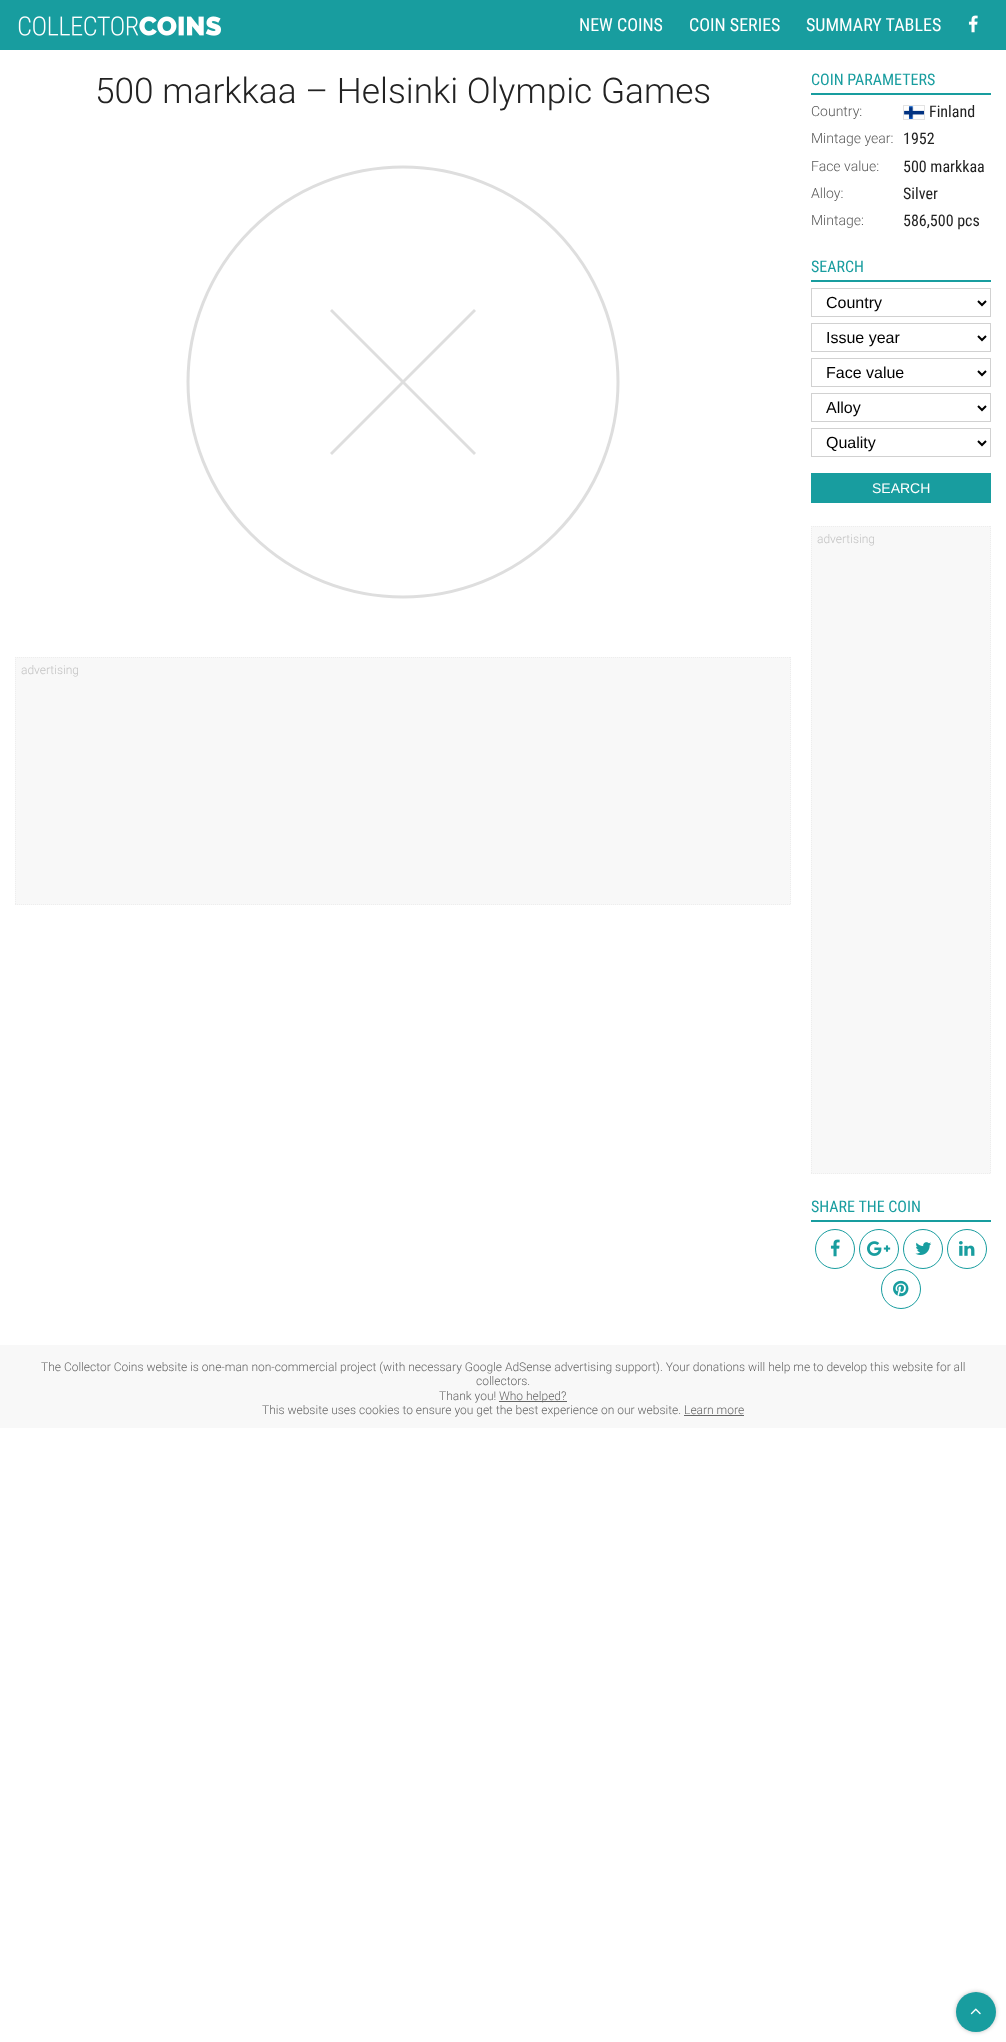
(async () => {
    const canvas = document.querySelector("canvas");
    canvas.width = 1006;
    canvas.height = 2042;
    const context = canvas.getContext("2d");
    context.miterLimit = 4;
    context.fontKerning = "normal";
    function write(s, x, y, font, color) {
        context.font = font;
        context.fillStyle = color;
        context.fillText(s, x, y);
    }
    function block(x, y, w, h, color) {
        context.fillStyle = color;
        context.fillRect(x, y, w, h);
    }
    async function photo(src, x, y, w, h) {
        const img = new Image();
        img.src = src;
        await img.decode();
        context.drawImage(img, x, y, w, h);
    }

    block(0, 0, 1006, 2042, "rgb(255, 255, 255)");
    block(0, 0, 1006, 50, "rgb(24, 157, 159)");
    await photo("media/1.png", 18, 16, 203, 20);
    write("NEW COINS", 579, 31, "18px Roboto Condensed", "rgb(255, 255, 255)");
    write("COIN SERIES", 689, 31, "18px Roboto Condensed", "rgb(255, 255, 255)");
    write("SUMMARY TABLES", 806, 31, "18px Roboto Condensed", "rgb(255, 255, 255)");
    await photo("media/2.png", 968, 15, 10, 18);
    write("500 markkaa – Helsinki Olympic Games", 95, 103, "300 35.25px Roboto", "rgb(34, 34, 34)");
    context.beginPath();
    context.arc(403, 382, 215, 0, Math.PI * 2);
    context.strokeStyle = "rgb(222, 222, 222)";
    context.lineWidth = 3;
    context.stroke();
    context.fillStyle = "rgb(222, 222, 222)";
    context.beginPath();
    context.moveTo(474, 309);
    context.lineTo(403, 380);
    context.lineTo(332, 309);
    context.lineTo(330, 311);
    context.lineTo(401, 382);
    context.lineTo(330, 453);
    context.lineTo(332, 455);
    context.lineTo(403, 384);
    context.lineTo(474, 455);
    context.lineTo(476, 453);
    context.lineTo(405, 382);
    context.lineTo(476, 311);
    context.closePath();
    context.fill();
    block(15, 657, 776, 248, "rgb(248, 248, 248)");
    context.beginPath();
    context.moveTo(15, 657.5);
    context.lineTo(791, 657.5);
    context.strokeStyle = "rgb(237, 237, 237)";
    context.lineWidth = 1;
    context.setLineDash([1, 1]);
    context.stroke();
    context.beginPath();
    context.moveTo(790.5, 657);
    context.lineTo(790.5, 905);
    context.stroke();
    context.beginPath();
    context.moveTo(15, 904.5);
    context.lineTo(791, 904.5);
    context.stroke();
    context.beginPath();
    context.moveTo(15.5, 657);
    context.lineTo(15.5, 905);
    context.stroke();
    write("advertising", 21, 674, "300 12px Roboto", "rgb(195, 195, 195)");
    block(811, 93, 180, 2, "rgb(24, 157, 159)");
    write("COIN PARAMETERS", 811, 85, "16px Roboto Condensed", "rgb(24, 157, 159)");
    write("Country:", 811, 116, "300 14px Roboto", "rgb(89, 89, 89)");
    context.strokeStyle = "rgb(227, 227, 227)";
    context.setLineDash([]);
    context.strokeRect(903.5, 105.5, 21, 14);
    await photo("media/3.png", 904, 106, 20, 13);
    write("Finland", 929, 117, "16px Roboto Condensed", "rgb(34, 34, 34)");
    write("Mintage year:", 811, 143, "300 14px Roboto", "rgb(89, 89, 89)");
    write("1952", 903, 144, "16px Roboto Condensed", "rgb(34, 34, 34)");
    write("Face value:", 811, 171, "300 14px Roboto", "rgb(89, 89, 89)");
    write("500 markkaa", 903, 172, "16px Roboto Condensed", "rgb(34, 34, 34)");
    write("Alloy:", 811, 198, "300 14px Roboto", "rgb(89, 89, 89)");
    write("Silver", 903, 199, "16px Roboto Condensed", "rgb(34, 34, 34)");
    write("Mintage:", 811, 225, "300 14px Roboto", "rgb(89, 89, 89)");
    write("586,500 pcs", 903, 226, "16px Roboto Condensed", "rgb(34, 34, 34)");
    block(811, 280, 180, 2, "rgb(24, 157, 159)");
    write("SEARCH", 811, 272, "16px Roboto Condensed", "rgb(24, 157, 159)");
    context.strokeStyle = "rgb(209, 209, 209)";
    context.strokeRect(811.5, 288.5, 179, 28);
    context.beginPath();
    context.moveTo(978, 301);
    context.lineTo(982, 305);
    context.lineTo(986, 301);
    context.strokeStyle = "rgb(0, 0, 0)";
    context.lineWidth = 2;
    context.stroke();
    write("Country", 826, 308, "16px Liberation Sans", "rgb(0, 0, 0)");
    context.strokeStyle = "rgb(209, 209, 209)";
    context.lineWidth = 1;
    context.strokeRect(811.5, 323.5, 179, 28);
    context.beginPath();
    context.moveTo(978, 336);
    context.lineTo(982, 340);
    context.lineTo(986, 336);
    context.strokeStyle = "rgb(0, 0, 0)";
    context.lineWidth = 2;
    context.stroke();
    write("Issue year", 826, 343, "16px Liberation Sans", "rgb(0, 0, 0)");
    context.strokeStyle = "rgb(209, 209, 209)";
    context.lineWidth = 1;
    context.strokeRect(811.5, 358.5, 179, 28);
    context.beginPath();
    context.moveTo(978, 371);
    context.lineTo(982, 375);
    context.lineTo(986, 371);
    context.strokeStyle = "rgb(0, 0, 0)";
    context.lineWidth = 2;
    context.stroke();
    write("Face value", 826, 378, "16px Liberation Sans", "rgb(0, 0, 0)");
    context.strokeStyle = "rgb(209, 209, 209)";
    context.lineWidth = 1;
    context.strokeRect(811.5, 393.5, 179, 28);
    context.beginPath();
    context.moveTo(978, 406);
    context.lineTo(982, 410);
    context.lineTo(986, 406);
    context.strokeStyle = "rgb(0, 0, 0)";
    context.lineWidth = 2;
    context.stroke();
    write("Alloy", 826, 413, "16px Liberation Sans", "rgb(0, 0, 0)");
    context.strokeStyle = "rgb(209, 209, 209)";
    context.lineWidth = 1;
    context.strokeRect(811.5, 428.5, 179, 28);
    context.beginPath();
    context.moveTo(978, 441);
    context.lineTo(982, 445);
    context.lineTo(986, 441);
    context.strokeStyle = "rgb(0, 0, 0)";
    context.lineWidth = 2;
    context.stroke();
    write("Quality", 826, 448, "16px Liberation Sans", "rgb(0, 0, 0)");
    block(811, 473, 180, 30, "rgb(24, 157, 159)");
    write("SEARCH", 872, 493, "14px Liberation Sans", "rgb(255, 255, 255)");
    block(811, 526, 180, 648, "rgb(248, 248, 248)");
    context.beginPath();
    context.moveTo(811, 526.5);
    context.lineTo(991, 526.5);
    context.strokeStyle = "rgb(237, 237, 237)";
    context.lineWidth = 1;
    context.setLineDash([1, 1]);
    context.stroke();
    context.beginPath();
    context.moveTo(990.5, 526);
    context.lineTo(990.5, 1174);
    context.stroke();
    context.beginPath();
    context.moveTo(811, 1173.5);
    context.lineTo(991, 1173.5);
    context.stroke();
    context.beginPath();
    context.moveTo(811.5, 526);
    context.lineTo(811.5, 1174);
    context.stroke();
    write("advertising", 817, 543, "300 12px Roboto", "rgb(195, 195, 195)");
    block(811, 1220, 180, 2, "rgb(24, 157, 159)");
    write("SHARE THE COIN", 811, 1212, "16px Roboto Condensed", "rgb(24, 157, 159)");
    context.beginPath();
    context.arc(835, 1249, 19.5, 0, Math.PI * 2);
    context.strokeStyle = "rgb(24, 157, 159)";
    context.setLineDash([]);
    context.stroke();
    await photo("media/4.png", 830, 1239, 10, 18);
    context.beginPath();
    context.arc(879, 1249, 19.5, 0, Math.PI * 2);
    context.stroke();
    await photo("media/5.png", 867, 1241, 24, 15);
    context.beginPath();
    context.arc(923, 1249, 19.5, 0, Math.PI * 2);
    context.stroke();
    await photo("media/6.png", 915, 1242, 17, 13);
    context.beginPath();
    context.arc(967, 1249, 19.5, 0, Math.PI * 2);
    context.stroke();
    await photo("media/7.png", 959, 1241, 16, 15);
    context.beginPath();
    context.arc(901, 1289, 19.5, 0, Math.PI * 2);
    context.stroke();
    await photo("media/8.png", 893, 1280, 16, 17);
    block(0, 1345, 1006, 83, "rgb(248, 248, 248)");
    write("The Collector Coins website is one-man non-commercial project (with necessary Google AdSense advertising support). Your donations will help me to develop this website for all", 41, 1371, "300 12px Roboto", "rgb(102, 102, 102)");
    write("collectors.", 476, 1385, "300 12px Roboto", "rgb(102, 102, 102)");
    write("Thank you!", 439, 1400, "300 12px Roboto", "rgb(102, 102, 102)");
    block(499, 1401, 68, 1, "rgb(102, 102, 102)");
    write("Who helped?", 499, 1400, "300 12px Roboto", "rgb(102, 102, 102)");
    write("This website uses cookies to ensure you get the best experience on our website. Learn more", 262, 1414, "300 12px Roboto", "rgb(102, 102, 102)");
    block(684, 1415, 60, 1, "rgb(102, 102, 102)");
    context.fillStyle = "rgba(0, 0, 0, 0.25)";
    context.filter = "blur(2px)";
    context.beginPath();
    context.roundRect(956, 1992, 40, 40, 20);
    context.fill();
    context.filter = "none";
    context.fillStyle = "rgb(24, 157, 159)";
    context.beginPath();
    context.arc(976, 2012, 20, 0, Math.PI * 2);
    context.fill();
    await photo("media/9.png", 970, 2008, 11, 7);
})();
